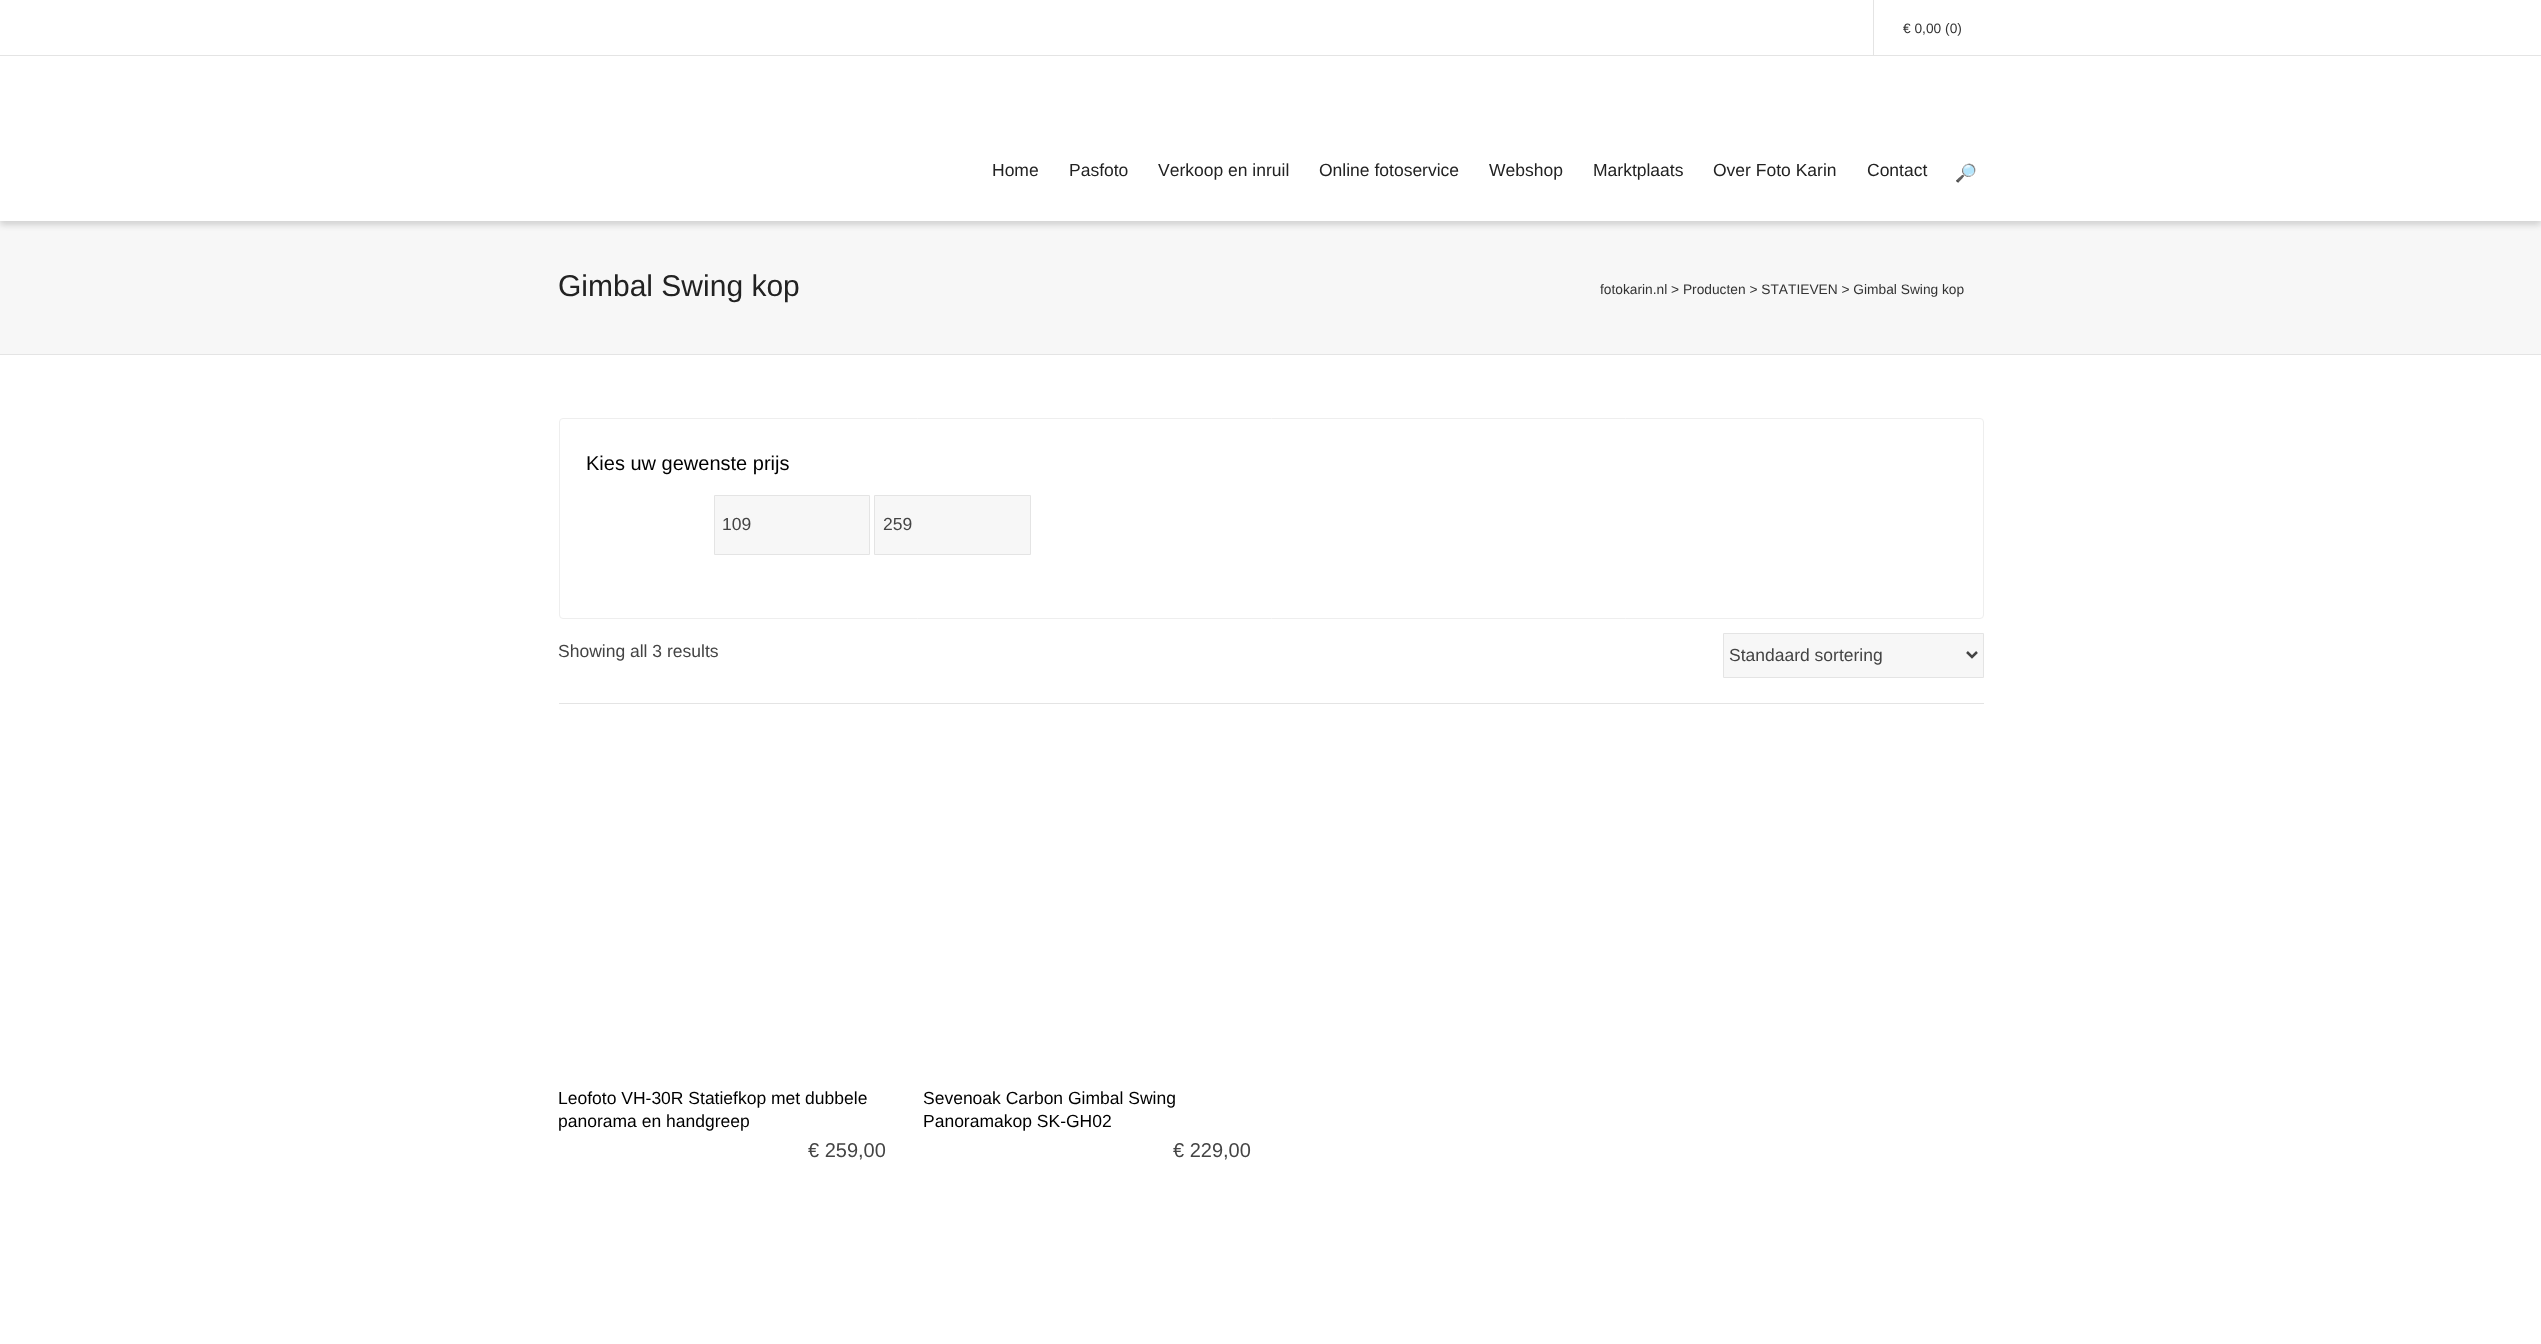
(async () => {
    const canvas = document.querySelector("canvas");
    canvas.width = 2541;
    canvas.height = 1344;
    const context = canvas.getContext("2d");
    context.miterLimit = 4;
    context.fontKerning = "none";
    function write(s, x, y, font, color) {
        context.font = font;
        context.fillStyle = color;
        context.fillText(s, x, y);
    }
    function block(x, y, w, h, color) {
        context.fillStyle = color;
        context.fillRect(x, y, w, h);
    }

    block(0, 0, 2541, 1344, "rgb(255, 255, 255)");
    block(0, 221, 2541, 133, "rgb(247, 247, 247)");
    context.fillStyle = "rgba(0, 0, 0, 0.1)";
    context.filter = "blur(3px)";
    context.beginPath();
    context.rect(0, 4, 2541, 221);
    context.fill();
    context.filter = "none";
    context.fillStyle = "rgba(0, 0, 0, 0.05)";
    context.filter = "blur(3px)";
    context.beginPath();
    context.rect(0, 4, 2541, 221);
    context.fill();
    context.filter = "none";
    block(0, 0, 2541, 221, "rgb(255, 255, 255)");
    block(0, 55, 2541, 1, "rgb(228, 228, 228)");
    block(1873, 0, 1, 55, "rgb(228, 228, 228)");
    write("€ 0,00 (0)", 1903, 33, "13.75px Liberation Sans", "rgb(51, 51, 51)");
    write("Home", 992, 176, "17.5px Liberation Sans", "rgb(34, 34, 34)");
    write("Pasfoto", 1069, 176, "17.5px Liberation Sans", "rgb(34, 34, 34)");
    write("Verkoop en inruil", 1158, 176, "17.5px Liberation Sans", "rgb(34, 34, 34)");
    write("Online fotoservice", 1319, 176, "17.5px Liberation Sans", "rgb(34, 34, 34)");
    write("Webshop", 1489, 176, "17.5px Liberation Sans", "rgb(34, 34, 34)");
    write("Marktplaats", 1593, 176, "17.5px Liberation Sans", "rgb(34, 34, 34)");
    write("Over Foto Karin", 1713, 176, "17.5px Liberation Sans", "rgb(34, 34, 34)");
    write("Contact", 1867, 176, "17.5px Liberation Sans", "rgb(34, 34, 34)");
    write("🔎", 1955, 179, "17.5px Noto Color Emoji", "rgb(34, 34, 34)");
    block(0, 354, 2541, 1, "rgb(228, 228, 228)");
    write("Gimbal Swing kop", 558, 296, "30px Liberation Sans", "rgb(34, 34, 34)");
    write("fotokarin.nl > Producten > STATIEVEN > Gimbal Swing kop", 1600, 294, "13.75px Liberation Sans", "rgb(51, 51, 51)");
    context.beginPath();
    context.roundRect(559.5, 418.5, 1424, 200, 3.5);
    context.strokeStyle = "rgb(238, 238, 238)";
    context.stroke();
    write("Kies uw gewenste prijs", 586, 470, "20px Liberation Sans", "rgb(0, 0, 0)");
    context.fillStyle = "rgb(247, 247, 247)";
    context.beginPath();
    context.rect(714.5, 495.5, 155, 59);
    context.fill();
    context.strokeStyle = "rgb(228, 228, 228)";
    context.stroke();
    write("109", 722, 530, "17.5px Liberation Sans", "rgb(68, 68, 68)");
    context.fillStyle = "rgb(247, 247, 247)";
    context.beginPath();
    context.rect(874.5, 495.5, 156, 59);
    context.fill();
    context.stroke();
    write("259", 883, 530, "17.5px Liberation Sans", "rgb(68, 68, 68)");
    write("Showing all 3 results", 558, 657, "17.5px Liberation Sans", "rgb(68, 68, 68)");
    context.fillStyle = "rgb(247, 247, 247)";
    context.beginPath();
    context.rect(1723.5, 633.5, 260, 44);
    context.fill();
    context.stroke();
    context.beginPath();
    context.moveTo(1967, 652);
    context.lineTo(1972, 657);
    context.lineTo(1977, 652);
    context.strokeStyle = "rgb(68, 68, 68)";
    context.lineWidth = 2.5;
    context.stroke();
    write("Standaard sortering", 1729, 661, "17.5px Liberation Sans", "rgb(68, 68, 68)");
    block(559, 703, 1425, 1, "rgb(228, 228, 228)");
    write("Leofoto VH-30R Statiefkop met dubbele", 558, 1104, "17.5px Liberation Sans", "rgb(0, 0, 0)");
    write("panorama en handgreep", 558, 1127, "17.5px Liberation Sans", "rgb(0, 0, 0)");
    write("€ 259,00", 808, 1157, "20px Liberation Sans", "rgb(68, 68, 68)");
    write("Sevenoak Carbon Gimbal Swing", 923, 1104, "17.5px Liberation Sans", "rgb(0, 0, 0)");
    write("Panoramakop SK-GH02", 923, 1127, "17.5px Liberation Sans", "rgb(0, 0, 0)");
    write("€ 229,00", 1173, 1157, "20px Liberation Sans", "rgb(68, 68, 68)");
})();
